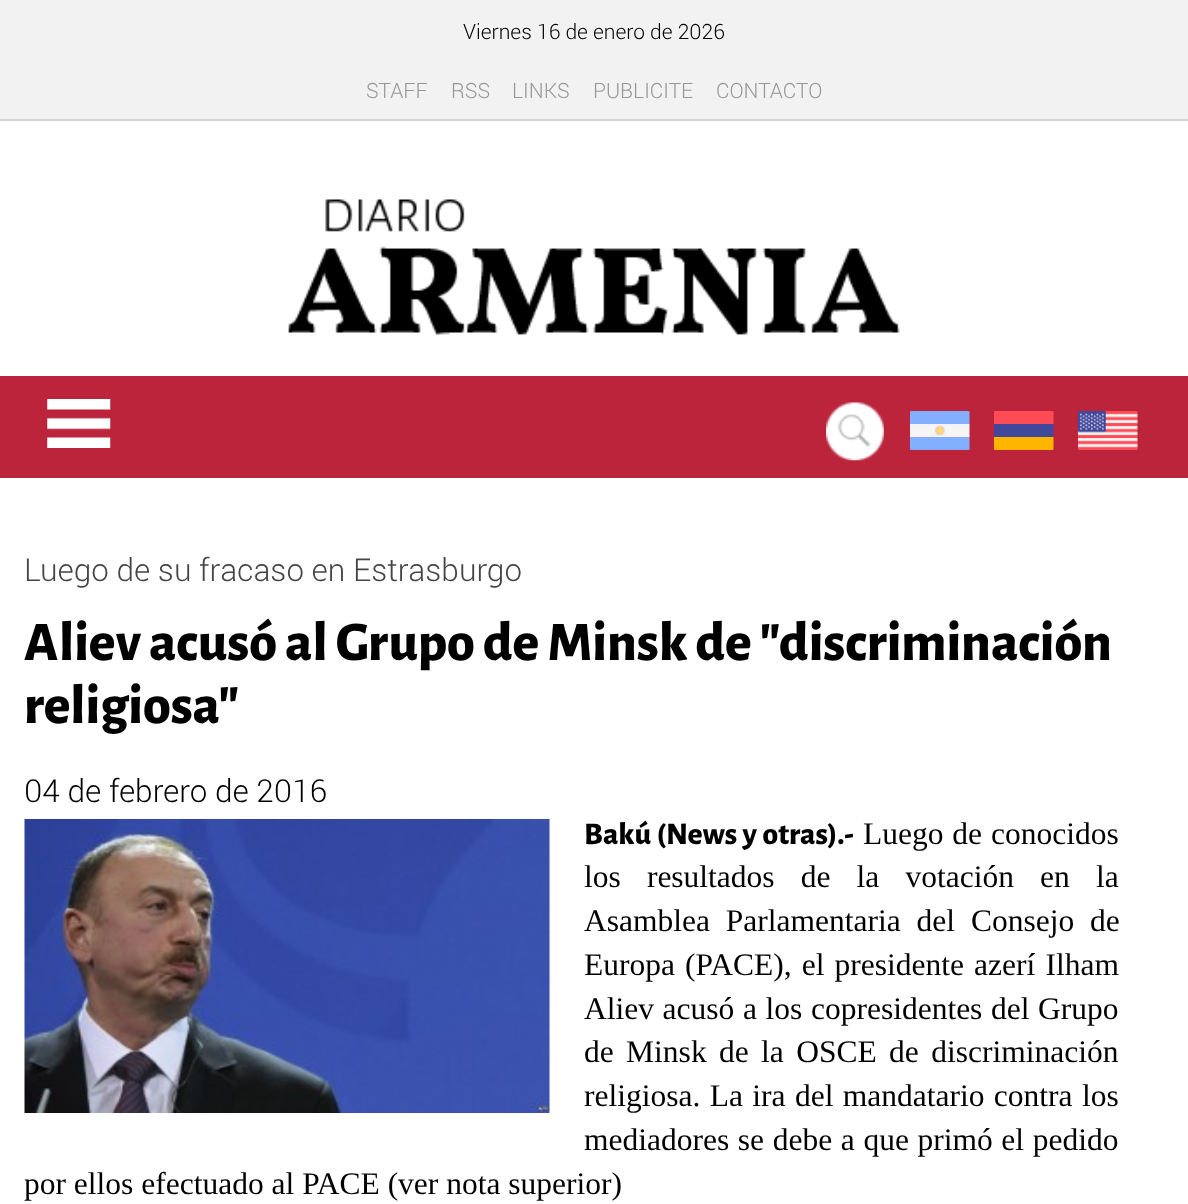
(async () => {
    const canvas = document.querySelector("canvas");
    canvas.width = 1188;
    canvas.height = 1204;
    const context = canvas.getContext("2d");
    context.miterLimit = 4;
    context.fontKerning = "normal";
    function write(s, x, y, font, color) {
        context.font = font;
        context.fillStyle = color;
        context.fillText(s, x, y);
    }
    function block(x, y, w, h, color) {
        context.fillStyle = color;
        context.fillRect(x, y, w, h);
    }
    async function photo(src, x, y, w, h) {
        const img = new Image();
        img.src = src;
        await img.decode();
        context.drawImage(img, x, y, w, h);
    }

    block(0, 0, 1188, 1204, "rgb(255, 255, 255)");
    block(0, 0, 1188, 119, "rgb(242, 242, 242)");
    block(0, 119, 1188, 2, "rgb(211, 211, 211)");
    write("Viernes 16 de enero de 2026", 463, 39, "300 21px Roboto", "rgb(0, 0, 0)");
    write("STAFF", 366, 98, "300 21px Roboto", "rgb(151, 151, 151)");
    write("RSS", 451, 98, "300 21px Roboto", "rgb(151, 151, 151)");
    write("LINKS", 512, 98, "300 21px Roboto", "rgb(151, 151, 151)");
    write("PUBLICITE", 593, 98, "300 21px Roboto", "rgb(151, 151, 151)");
    write("CONTACTO", 716, 98, "300 21px Roboto", "rgb(151, 151, 151)");
    await photo("media/1.png", 288, 199, 612, 136);
    block(0, 376, 1188, 102, "rgb(188, 36, 60)");
    await photo("media/2.png", 47, 399, 64, 49);
    await photo("media/3.png", 826, 402, 58, 59);
    await photo("media/4.png", 910, 411, 60, 39);
    await photo("media/5.png", 994, 411, 60, 39);
    await photo("media/6.png", 1078, 411, 60, 39);
    write("Luego de su fracaso en Estrasburgo", 24, 581, "300 31.5px Roboto", "rgb(69, 69, 69)");
    write("Aliev acusó al Grupo de Minsk de \"discriminación", 24, 660, "800 56px Alegreya Sans", "rgb(0, 0, 0)");
    write("religiosa\"", 24, 723, "800 56px Alegreya Sans", "rgb(0, 0, 0)");
    write("04 de febrero de 2016", 24, 802, "300 31.5px Roboto", "rgb(0, 0, 0)");
    await photo("media/7.png", 24, 819, 526, 294);
    context.wordSpacing = "1px";
    write("Bakú (News y otras).-", 584, 844, "800 31.5px Alegreya Sans", "rgb(0, 0, 0)");
    write("Luego de conocidos", 863, 844, "31.5px Liberation Serif", "rgb(0, 0, 0)");
    context.wordSpacing = "18.25px";
    write("los resultados de la votación en la", 584, 887, "31.5px Liberation Serif", "rgb(0, 0, 0)");
    context.wordSpacing = "8px";
    write("Asamblea Parlamentaria del Consejo de", 584, 931, "31.5px Liberation Serif", "rgb(0, 0, 0)");
    context.wordSpacing = "2.25px";
    write("Europa (PACE), el presidente azerí Ilham", 584, 975, "31.5px Liberation Serif", "rgb(0, 0, 0)");
    context.wordSpacing = "0.75px";
    write("Aliev acusó a los copresidentes del Grupo", 584, 1019, "31.5px Liberation Serif", "rgb(0, 0, 0)");
    context.wordSpacing = "4.5px";
    write("de Minsk de la OSCE de discriminación", 584, 1062, "31.5px Liberation Serif", "rgb(0, 0, 0)");
    context.wordSpacing = "1.5px";
    write("religiosa. La ira del mandatario contra los", 584, 1106, "31.5px Liberation Serif", "rgb(0, 0, 0)");
    context.wordSpacing = "0.75px";
    write("mediadores se debe a que primó el pedido", 584, 1150, "31.5px Liberation Serif", "rgb(0, 0, 0)");
    context.wordSpacing = "0px";
    write("por ellos efectuado al PACE (ver nota superior)", 24, 1194, "31.5px Liberation Serif", "rgb(0, 0, 0)");
})();
